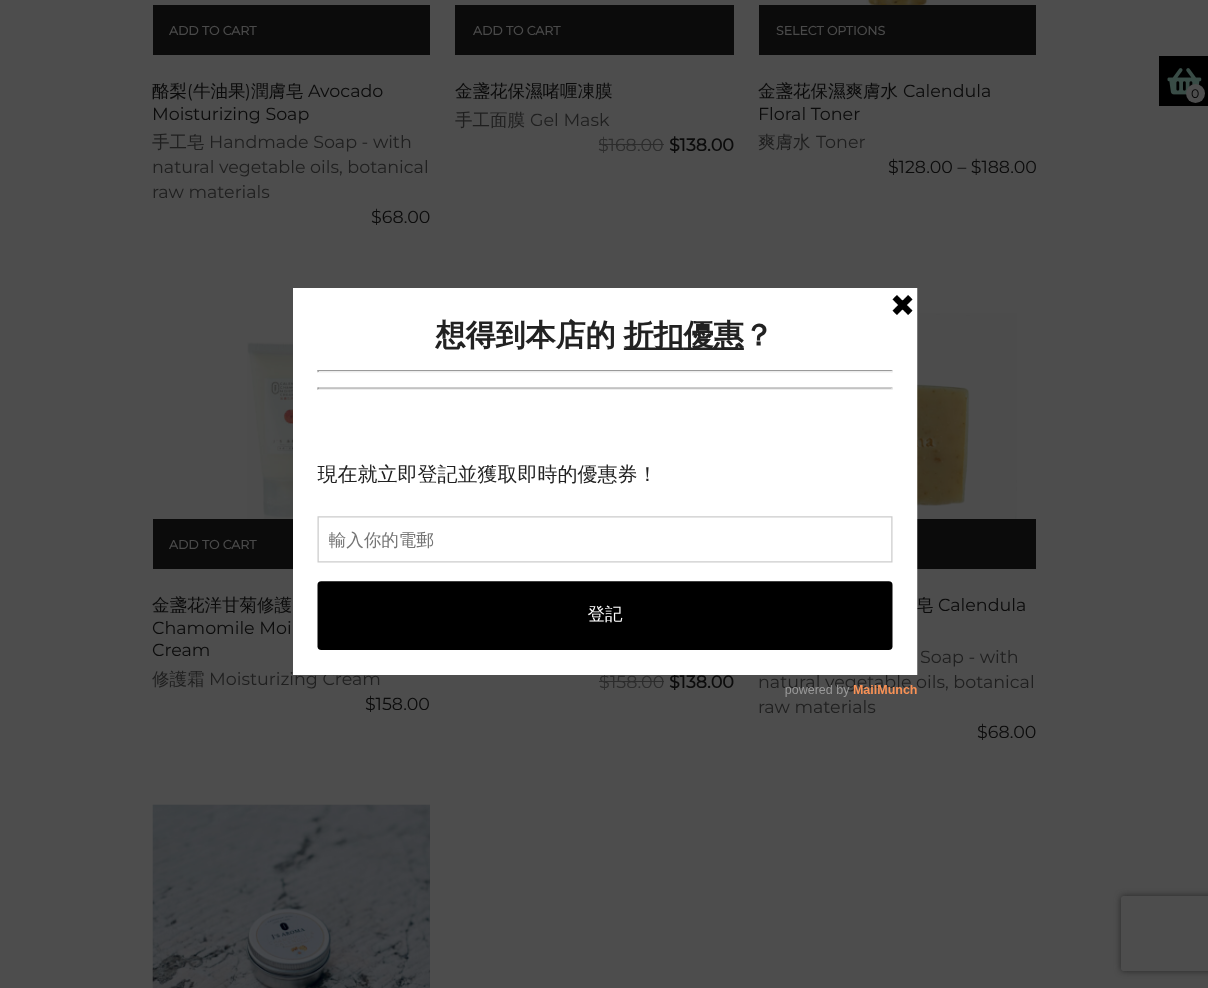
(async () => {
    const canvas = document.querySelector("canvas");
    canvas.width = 1208;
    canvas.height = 988;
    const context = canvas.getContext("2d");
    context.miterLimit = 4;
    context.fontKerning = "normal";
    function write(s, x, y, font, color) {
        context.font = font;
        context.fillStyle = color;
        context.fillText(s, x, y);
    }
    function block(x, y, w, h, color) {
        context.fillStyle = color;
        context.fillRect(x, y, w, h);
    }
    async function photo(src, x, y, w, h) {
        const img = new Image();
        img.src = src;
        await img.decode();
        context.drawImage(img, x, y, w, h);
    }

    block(0, 0, 1208, 988, "rgb(77, 77, 77)");
    block(153, 5, 277, 50, "rgb(11, 11, 11)");
    write("ADD TO CART", 169, 35, "bold 12.5px Montserrat", "rgb(74, 74, 74)");
    write("酪梨", 152, 97, "500 17.5px WenQuanYi Zen Hei", "rgb(11, 11, 11)");
    write("(", 187, 97, "100 17.5px Montserrat", "rgb(11, 11, 11)");
    write("牛油果", 193, 97, "500 17.5px WenQuanYi Zen Hei", "rgb(11, 11, 11)");
    write(")", 245, 97, "100 17.5px Montserrat", "rgb(11, 11, 11)");
    write("潤膚皂", 251, 97, "500 17.5px WenQuanYi Zen Hei", "rgb(11, 11, 11)");
    write("Avocado", 308, 97, "100 17.5px Montserrat", "rgb(11, 11, 11)");
    write("Moisturizing Soap", 152, 120, "100 17.5px Montserrat", "rgb(11, 11, 11)");
    write("手工皂", 152, 148, "500 17.5px WenQuanYi Zen Hei", "rgb(31, 31, 31)");
    write("Handmade Soap - with", 209, 148, "100 17.5px Montserrat", "rgb(31, 31, 31)");
    write("natural vegetable oils, botanical", 152, 173, "100 17.5px Montserrat", "rgb(31, 31, 31)");
    write("raw materials", 152, 198, "100 17.5px Montserrat", "rgb(31, 31, 31)");
    write("$68.00", 371, 223, "100 17.5px Montserrat", "rgb(11, 11, 11)");
    block(455, 5, 279, 50, "rgb(11, 11, 11)");
    write("ADD TO CART", 473, 35, "bold 12.5px Montserrat", "rgb(74, 74, 74)");
    write("金盞花保濕啫喱凍膜", 455, 97, "500 17.5px WenQuanYi Zen Hei", "rgb(11, 11, 11)");
    write("手工面膜", 455, 126, "500 17.5px WenQuanYi Zen Hei", "rgb(31, 31, 31)");
    write("Gel Mask", 530, 126, "100 17.5px Montserrat", "rgb(31, 31, 31)");
    write("$168.00", 598, 151, "100 17.5px Montserrat", "rgb(44, 44, 44)");
    block(599, 144, 65, 1, "rgb(44, 44, 44)");
    write("$138.00", 669, 151, "bold 17.5px Montserrat", "rgb(11, 11, 11)");
    await photo("media/1.png", 866, 0, 63, 5);
    block(759, 5, 277, 50, "rgb(11, 11, 11)");
    write("SELECT OPTIONS", 776, 35, "bold 12.5px Montserrat", "rgb(74, 74, 74)");
    write("金盞花保濕爽膚水", 758, 97, "500 17.5px WenQuanYi Zen Hei", "rgb(11, 11, 11)");
    write("Calendula", 903, 97, "100 17.5px Montserrat", "rgb(11, 11, 11)");
    write("Floral Toner", 758, 120, "100 17.5px Montserrat", "rgb(11, 11, 11)");
    write("爽膚水", 758, 148, "500 17.5px WenQuanYi Zen Hei", "rgb(31, 31, 31)");
    write("Toner", 816, 148, "100 17.5px Montserrat", "rgb(31, 31, 31)");
    write("$128.00 – $188.00", 888, 173, "100 17.5px Montserrat", "rgb(11, 11, 11)");
    await photo("media/2.png", 247, 342, 46, 177);
    block(153, 519, 140, 50, "rgb(11, 11, 11)");
    write("ADD TO CART", 169, 549, "bold 12.5px Montserrat", "rgb(74, 74, 74)");
    write("金盞花洋甘菊修護", 152, 611, "500 17.5px WenQuanYi Zen Hei", "rgb(11, 11, 11)");
    write("Chamomile Moi", 152, 634, "100 17.5px Montserrat", "rgb(11, 11, 11)");
    write("Cream", 152, 656, "100 17.5px Montserrat", "rgb(11, 11, 11)");
    write("修護霜", 152, 685, "500 17.5px WenQuanYi Zen Hei", "rgb(31, 31, 31)");
    write("Moisturizing Cream", 209, 685, "100 17.5px Montserrat", "rgb(31, 31, 31)");
    write("$158.00", 365, 710, "100 17.5px Montserrat", "rgb(11, 11, 11)");
    write("$", 599, 688, "100 17.5px Montserrat", "rgb(44, 44, 44)");
    block(599, 681, 11, 1, "rgb(44, 44, 44)");
    block(610, 681, 54, 1, "rgb(44, 44, 44)");
    write("158.00", 610, 688, "100 17.5px Montserrat", "rgb(44, 44, 44)");
    write("$138.00", 669, 688, "bold 17.5px Montserrat", "rgb(11, 11, 11)");
    await photo("media/3.png", 917, 313, 100, 206);
    block(917, 519, 119, 50, "rgb(11, 11, 11)");
    write("皂", 916, 611, "500 17.5px WenQuanYi Zen Hei", "rgb(11, 11, 11)");
    write("Calendula", 938, 611, "100 17.5px Montserrat", "rgb(11, 11, 11)");
    write("Soap - with", 920, 663, "100 17.5px Montserrat", "rgb(31, 31, 31)");
    write("natural vegetable oils, botanical", 758, 688, "100 17.5px Montserrat", "rgb(31, 31, 31)");
    write("raw materials", 758, 713, "100 17.5px Montserrat", "rgb(31, 31, 31)");
    write("$68.00", 977, 738, "100 17.5px Montserrat", "rgb(11, 11, 11)");
    await photo("media/4.png", 152, 804, 278, 184);
    block(1159, 56, 49, 50, "rgb(0, 0, 0)");
    await photo("media/5.png", 1167, 68, 35, 27);
    context.fillStyle = "rgb(77, 77, 77)";
    context.beginPath();
    context.arc(1195.5, 93.5, 9.5, 0, Math.PI * 2);
    context.fill();
    write("0", 1191, 98, "100 12.5px Montserrat", "rgb(0, 0, 0)");
    await photo("media/6.png", 293, 288, 625, 409);
    context.save();
    context.beginPath();
    context.moveTo(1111, 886);
    context.lineTo(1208, 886);
    context.lineTo(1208, 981);
    context.lineTo(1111, 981);
    context.closePath();
    context.moveTo(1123.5, 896);
    context.lineTo(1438.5, 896);
    context.bezierCurveTo(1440, 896, 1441, 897, 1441, 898.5);
    context.lineTo(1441, 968.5);
    context.bezierCurveTo(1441, 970, 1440, 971, 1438.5, 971);
    context.lineTo(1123.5, 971);
    context.bezierCurveTo(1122, 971, 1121, 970, 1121, 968.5);
    context.lineTo(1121, 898.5);
    context.bezierCurveTo(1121, 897, 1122, 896, 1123.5, 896);
    context.closePath();
    context.clip("evenodd");
    context.fillStyle = "rgb(38, 38, 38)";
    context.filter = "blur(3px)";
    context.beginPath();
    context.roundRect(1121, 896, 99, 75, 2.5);
    context.fill();
    context.filter = "none";
    context.restore();
})();
